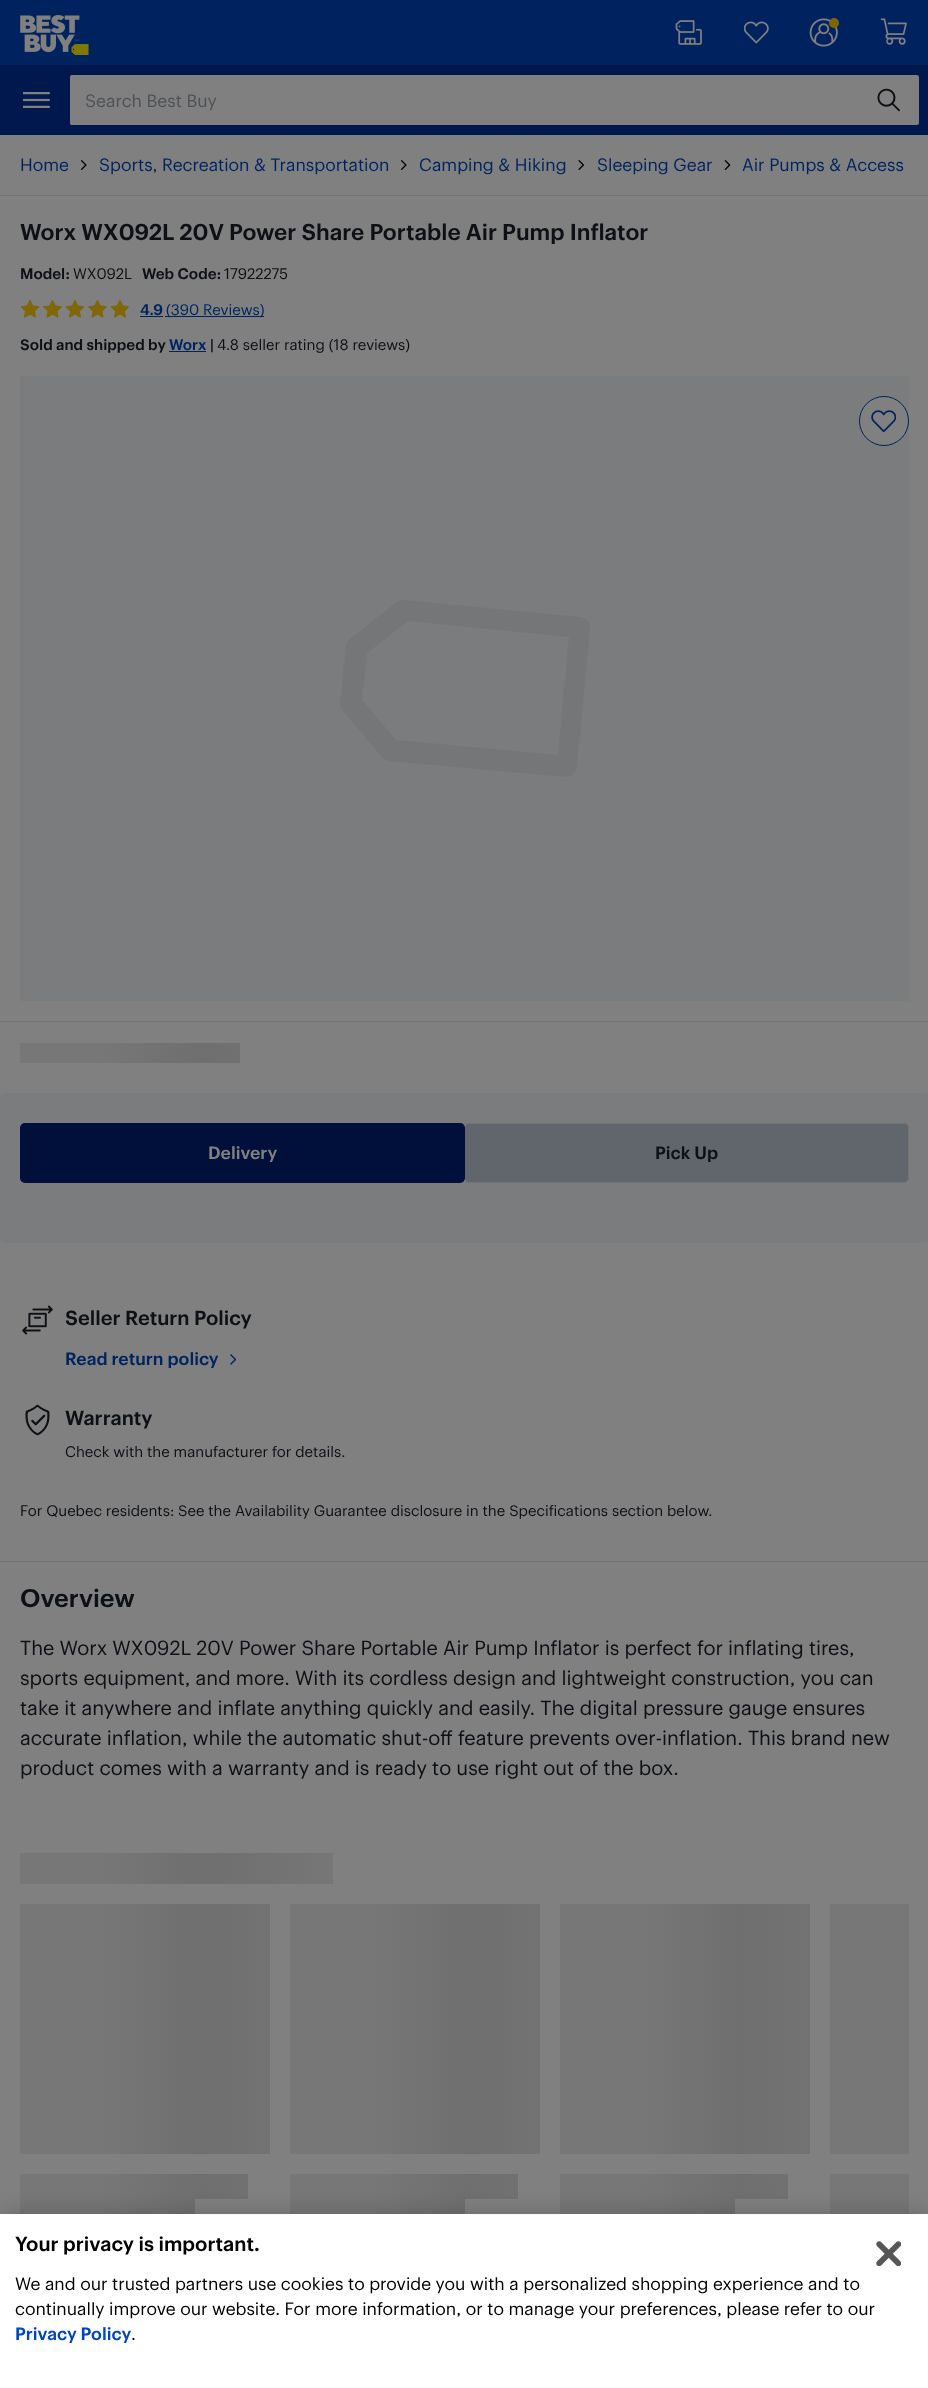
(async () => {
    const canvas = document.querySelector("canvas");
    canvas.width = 928;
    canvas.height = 2388;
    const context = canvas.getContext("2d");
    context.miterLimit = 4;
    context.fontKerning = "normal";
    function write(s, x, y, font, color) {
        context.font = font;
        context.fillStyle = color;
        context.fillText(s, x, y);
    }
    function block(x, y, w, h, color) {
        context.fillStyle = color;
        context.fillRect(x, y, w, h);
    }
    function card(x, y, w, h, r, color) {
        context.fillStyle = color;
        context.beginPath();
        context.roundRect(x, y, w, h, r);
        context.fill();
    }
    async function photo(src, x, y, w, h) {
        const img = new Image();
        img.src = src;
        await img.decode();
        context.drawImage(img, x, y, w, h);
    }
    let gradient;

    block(0, 0, 928, 2388, "rgb(128, 128, 128)");
    block(0, 0, 928, 65, "rgb(0, 35, 95)");
    await photo("media/1.png", 20, 15, 69, 40);
    await photo("media/2.png", 675, 20, 27, 25);
    await photo("media/3.png", 744, 21, 25, 23);
    await photo("media/4.png", 809, 18, 29, 29);
    context.fillStyle = "rgb(128, 102, 0)";
    context.beginPath();
    context.arc(834, 23, 5, 0, Math.PI * 2);
    context.fill();
    await photo("media/5.png", 880, 18, 27, 27);
    block(0, 65, 928, 70, "rgb(0, 24, 77)");
    await photo("media/6.png", 23, 92, 27, 16);
    card(70, 75, 849, 50, 2.5, "rgb(128, 128, 128)");
    card(70, 75, 764, 50, 2.5, "rgb(128, 128, 128)");
    write("Search Best Buy", 85, 107, "17.5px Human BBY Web", "rgb(78, 82, 88)");
    await photo("media/7.png", 877, 88, 23, 24);
    write("Home", 20, 171, "17.5px Human BBY Web", "rgb(0, 35, 95)");
    await photo("media/8.png", 81, 160, 6, 10);
    write("Sports, Recreation & Transportation", 99, 171, "17.5px Human BBY Web", "rgb(0, 35, 95)");
    await photo("media/8.png", 401, 160, 6, 10);
    write("Camping & Hiking", 419, 171, "17.5px Human BBY Web", "rgb(0, 35, 95)");
    await photo("media/9.png", 578, 160, 6, 10);
    write("Sleeping Gear", 597, 171, "17.5px Human BBY Web", "rgb(0, 35, 95)");
    await photo("media/10.png", 724, 160, 7, 10);
    write("Air Pumps & Access", 742, 171, "17.5px Human BBY Web", "rgb(0, 35, 95)");
    block(0, 195, 928, 1, "rgb(113, 116, 120)");
    write("Worx WX092L 20V Power Share Portable Air Pump Inflator", 20, 240, "500 22.5px Human BBY Web", "rgb(13, 16, 21)");
    write("Model:", 20, 279, "500 15px Human BBY Web", "rgb(13, 16, 21)");
    write("WX092L", 73, 279, "15px Human BBY Web", "rgb(13, 16, 21)");
    write("Web Code:", 142, 279, "500 15px Human BBY Web", "rgb(13, 16, 21)");
    write("17922275", 224, 279, "15px Human BBY Web", "rgb(13, 16, 21)");
    await photo("media/12.png", 21, 300, 18, 18);
    await photo("media/11.png", 20, 300, 20, 18);
    await photo("media/13.png", 43, 300, 19, 18);
    await photo("media/14.png", 43, 300, 19, 18);
    await photo("media/12.png", 66, 300, 18, 18);
    await photo("media/11.png", 65, 300, 20, 18);
    await photo("media/13.png", 88, 300, 19, 18);
    await photo("media/14.png", 88, 300, 19, 18);
    await photo("media/12.png", 111, 300, 18, 18);
    await photo("media/15.png", 110, 300, 18, 18);
    write("4.9", 140, 315, "500 15px Human BBY Web", "rgb(0, 35, 95)");
    block(140, 316, 23, 1, "rgb(0, 35, 95)");
    block(165, 316, 99, 1, "rgb(0, 35, 95)");
    write("(390 Reviews)", 166, 315, "15px Human BBY Web", "rgb(0, 35, 95)");
    write("Sold and shipped by", 20, 350, "500 15px Human BBY Web", "rgb(13, 16, 21)");
    write("Worx", 169, 350, "500 15px Human BBY Web", "rgb(0, 35, 95)");
    block(169, 351, 37, 1, "rgb(0, 35, 95)");
    write("|", 210, 350, "500 15px Human BBY Web", "rgb(13, 16, 21)");
    write("4.8 seller rating (18 reviews)", 217, 350, "15px Human BBY Web", "rgb(13, 16, 21)");
    gradient = context.createLinearGradient(20, 1108, 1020, 1108);
    gradient.addColorStop(0.08, "rgb(119, 119, 119)");
    gradient.addColorStop(0.18, "rgb(111, 111, 111)");
    gradient.addColorStop(0.33, "rgb(119, 119, 119)");
    context.fillStyle = gradient;
    context.fillRect(20, 1043, 220, 20);
    card(0, 1093, 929, 150, 5, "rgb(123, 124, 125)");
    block(20, 1123, 889, 60, "rgb(128, 128, 128)");
    card(465, 1123, 444, 60, 5, "rgb(97, 101, 108)");
    context.beginPath();
    context.roundRect(20.5, 1123.5, 888, 59, 4.5);
    context.strokeStyle = "rgb(113, 116, 120)";
    context.stroke();
    card(20, 1123, 445, 60, 5, "rgb(0, 16, 59)");
    write("Delivery", 208, 1159, "500 17.5px Human BBY Web", "rgb(128, 128, 128)");
    write("Pick Up", 655, 1159, "500 17.5px Human BBY Web", "rgb(13, 16, 21)");
    await photo("media/16.png", 22, 1305, 31, 30);
    write("Seller Return Policy", 65, 1325, "500 20px Human BBY Web", "rgb(13, 16, 21)");
    write("Read return policy", 65, 1365, "500 17.5px Human BBY Web", "rgb(0, 35, 95)");
    await photo("media/17.png", 230, 1354, 7, 11);
    await photo("media/18.png", 25, 1404, 25, 32);
    write("Warranty", 65, 1425, "500 20px Human BBY Web", "rgb(13, 16, 21)");
    write("Check with the manufacturer for details.", 65, 1457, "15px Human BBY Web", "rgb(13, 16, 21)");
    write("For Quebec residents: See the Availability Guarantee disclosure in the Specifications section below.", 20, 1516, "15px Human BBY Web", "rgb(13, 16, 21)");
    block(20, 376, 889, 625, "rgb(123, 124, 125)");
    context.fillStyle = "rgb(117, 118, 119)";
    context.beginPath();
    context.moveTo(590, 628);
    context.bezierCurveTo(590, 626, 589, 623, 588, 621);
    context.bezierCurveTo(586, 619, 583, 617, 580, 617);
    context.lineTo(404, 600);
    context.bezierCurveTo(402, 600, 399, 601, 397, 602);
    context.lineTo(350, 639);
    context.bezierCurveTo(347, 641, 346, 644, 346, 646);
    context.lineTo(340, 703);
    context.bezierCurveTo(340, 706, 341, 708, 343, 711);
    context.lineTo(382, 757);
    context.bezierCurveTo(384, 759, 386, 760, 389, 761);
    context.lineTo(566, 777);
    context.bezierCurveTo(572, 777, 576, 773, 577, 767);
    context.closePath();
    context.moveTo(569, 637);
    context.lineTo(558, 755);
    context.lineTo(396, 740);
    context.lineTo(362, 700);
    context.lineTo(367, 653);
    context.lineTo(408, 621);
    context.closePath();
    context.fill();
    context.fillStyle = "rgb(128, 128, 128)";
    context.beginPath();
    context.arc(884, 421, 24.5, 0, Math.PI * 2);
    context.fill();
    context.strokeStyle = "rgb(0, 35, 95)";
    context.stroke();
    await photo("media/19.png", 871, 410, 25, 23);
    block(0, 1021, 928, 1, "rgb(113, 116, 120)");
    block(0, 1561, 928, 1, "rgb(113, 116, 120)");
    write("Overview", 20, 1607, "500 25px Human BBY Web", "rgb(13, 16, 21)");
    write("The Worx WX092L 20V Power Share Portable Air Pump Inflator is perfect for inflating tires,", 20, 1655, "20px Human BBY Web", "rgb(13, 16, 21)");
    write("sports equipment, and more. With its cordless design and lightweight construction, you can", 20, 1685, "20px Human BBY Web", "rgb(13, 16, 21)");
    write("take it anywhere and inflate anything quickly and easily. The digital pressure gauge ensures", 20, 1715, "20px Human BBY Web", "rgb(13, 16, 21)");
    write("accurate inflation, while the automatic shut-off feature prevents over-inflation. This brand new", 20, 1745, "20px Human BBY Web", "rgb(13, 16, 21)");
    write("product comes with a warranty and is ready to use right out of the box.", 20, 1775, "20px Human BBY Web", "rgb(13, 16, 21)");
    gradient = context.createLinearGradient(20, 1918, 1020, 1918);
    gradient.addColorStop(0.08, "rgb(119, 119, 119)");
    gradient.addColorStop(0.18, "rgb(111, 111, 111)");
    gradient.addColorStop(0.33, "rgb(119, 119, 119)");
    context.fillStyle = gradient;
    context.fillRect(20, 1853, 313, 31);
    gradient = context.createLinearGradient(20, 1969, 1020, 1969);
    gradient.addColorStop(0.08, "rgb(119, 119, 119)");
    gradient.addColorStop(0.18, "rgb(111, 111, 111)");
    gradient.addColorStop(0.33, "rgb(119, 119, 119)");
    context.fillStyle = gradient;
    context.fillRect(20, 1904, 250, 250);
    gradient = context.createLinearGradient(20, 2239, 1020, 2239);
    gradient.addColorStop(0.08, "rgb(119, 119, 119)");
    gradient.addColorStop(0.18, "rgb(111, 111, 111)");
    gradient.addColorStop(0.33, "rgb(119, 119, 119)");
    context.fillStyle = gradient;
    context.fillRect(20, 2174, 228, 25);
    gradient = context.createLinearGradient(20, 2264, 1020, 2264);
    gradient.addColorStop(0.08, "rgb(119, 119, 119)");
    gradient.addColorStop(0.18, "rgb(111, 111, 111)");
    gradient.addColorStop(0.33, "rgb(119, 119, 119)");
    context.fillStyle = gradient;
    context.fillRect(20, 2199, 175, 15);
    gradient = context.createLinearGradient(290, 1969, 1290, 1969);
    gradient.addColorStop(0.08, "rgb(119, 119, 119)");
    gradient.addColorStop(0.18, "rgb(111, 111, 111)");
    gradient.addColorStop(0.33, "rgb(119, 119, 119)");
    context.fillStyle = gradient;
    context.fillRect(290, 1904, 250, 250);
    gradient = context.createLinearGradient(290, 2239, 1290, 2239);
    gradient.addColorStop(0.08, "rgb(119, 119, 119)");
    gradient.addColorStop(0.18, "rgb(111, 111, 111)");
    gradient.addColorStop(0.33, "rgb(119, 119, 119)");
    context.fillStyle = gradient;
    context.fillRect(290, 2174, 228, 25);
    gradient = context.createLinearGradient(290, 2264, 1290, 2264);
    gradient.addColorStop(0.08, "rgb(119, 119, 119)");
    gradient.addColorStop(0.18, "rgb(111, 111, 111)");
    gradient.addColorStop(0.33, "rgb(119, 119, 119)");
    context.fillStyle = gradient;
    context.fillRect(290, 2199, 175, 15);
    gradient = context.createLinearGradient(560, 1969, 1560, 1969);
    gradient.addColorStop(0.08, "rgb(119, 119, 119)");
    gradient.addColorStop(0.18, "rgb(111, 111, 111)");
    gradient.addColorStop(0.33, "rgb(119, 119, 119)");
    context.fillStyle = gradient;
    context.fillRect(560, 1904, 250, 250);
    gradient = context.createLinearGradient(560, 2239, 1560, 2239);
    gradient.addColorStop(0.08, "rgb(119, 119, 119)");
    gradient.addColorStop(0.18, "rgb(111, 111, 111)");
    gradient.addColorStop(0.33, "rgb(119, 119, 119)");
    context.fillStyle = gradient;
    context.fillRect(560, 2174, 228, 25);
    gradient = context.createLinearGradient(560, 2264, 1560, 2264);
    gradient.addColorStop(0.08, "rgb(119, 119, 119)");
    gradient.addColorStop(0.18, "rgb(111, 111, 111)");
    gradient.addColorStop(0.33, "rgb(119, 119, 119)");
    context.fillStyle = gradient;
    context.fillRect(560, 2199, 175, 15);
    gradient = context.createLinearGradient(830, 1969, 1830, 1969);
    gradient.addColorStop(0.08, "rgb(119, 119, 119)");
    gradient.addColorStop(0.18, "rgb(111, 111, 111)");
    gradient.addColorStop(0.33, "rgb(119, 119, 119)");
    context.fillStyle = gradient;
    context.fillRect(830, 1904, 79, 250);
    gradient = context.createLinearGradient(830, 2239, 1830, 2239);
    gradient.addColorStop(0.08, "rgb(119, 119, 119)");
    gradient.addColorStop(0.18, "rgb(111, 111, 111)");
    gradient.addColorStop(0.33, "rgb(119, 119, 119)");
    context.fillStyle = gradient;
    context.fillRect(830, 2174, 79, 25);
    gradient = context.createLinearGradient(830, 2264, 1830, 2264);
    gradient.addColorStop(0.08, "rgb(119, 119, 119)");
    gradient.addColorStop(0.18, "rgb(111, 111, 111)");
    gradient.addColorStop(0.33, "rgb(119, 119, 119)");
    context.fillStyle = gradient;
    context.fillRect(830, 2199, 79, 15);
    context.fillStyle = "rgba(0, 0, 0, 0.2)";
    context.filter = "blur(11px)";
    context.beginPath();
    context.rect(0, 2214, 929, 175);
    context.fill();
    context.filter = "none";
    block(0, 2214, 928, 174, "rgb(255, 255, 255)");
    write("Your privacy is important.", 15, 2251, "500 20px Human BBY Web", "rgb(0, 0, 0)");
    write("We and our trusted partners use cookies to provide you with a personalized shopping experience and to", 15, 2290, "17.5px Human BBY Web", "rgb(0, 0, 0)");
    write("continually improve our website. For more information, or to manage your preferences, please refer to our", 15, 2315, "17.5px Human BBY Web", "rgb(0, 0, 0)");
    write("Privacy Policy", 15, 2340, "500 17.5px Human BBY Web", "rgb(0, 70, 190)");
    write(".", 131, 2340, "17.5px Human BBY Web", "rgb(0, 0, 0)");
    await photo("media/20.png", 876, 2241, 25, 25);
})();
